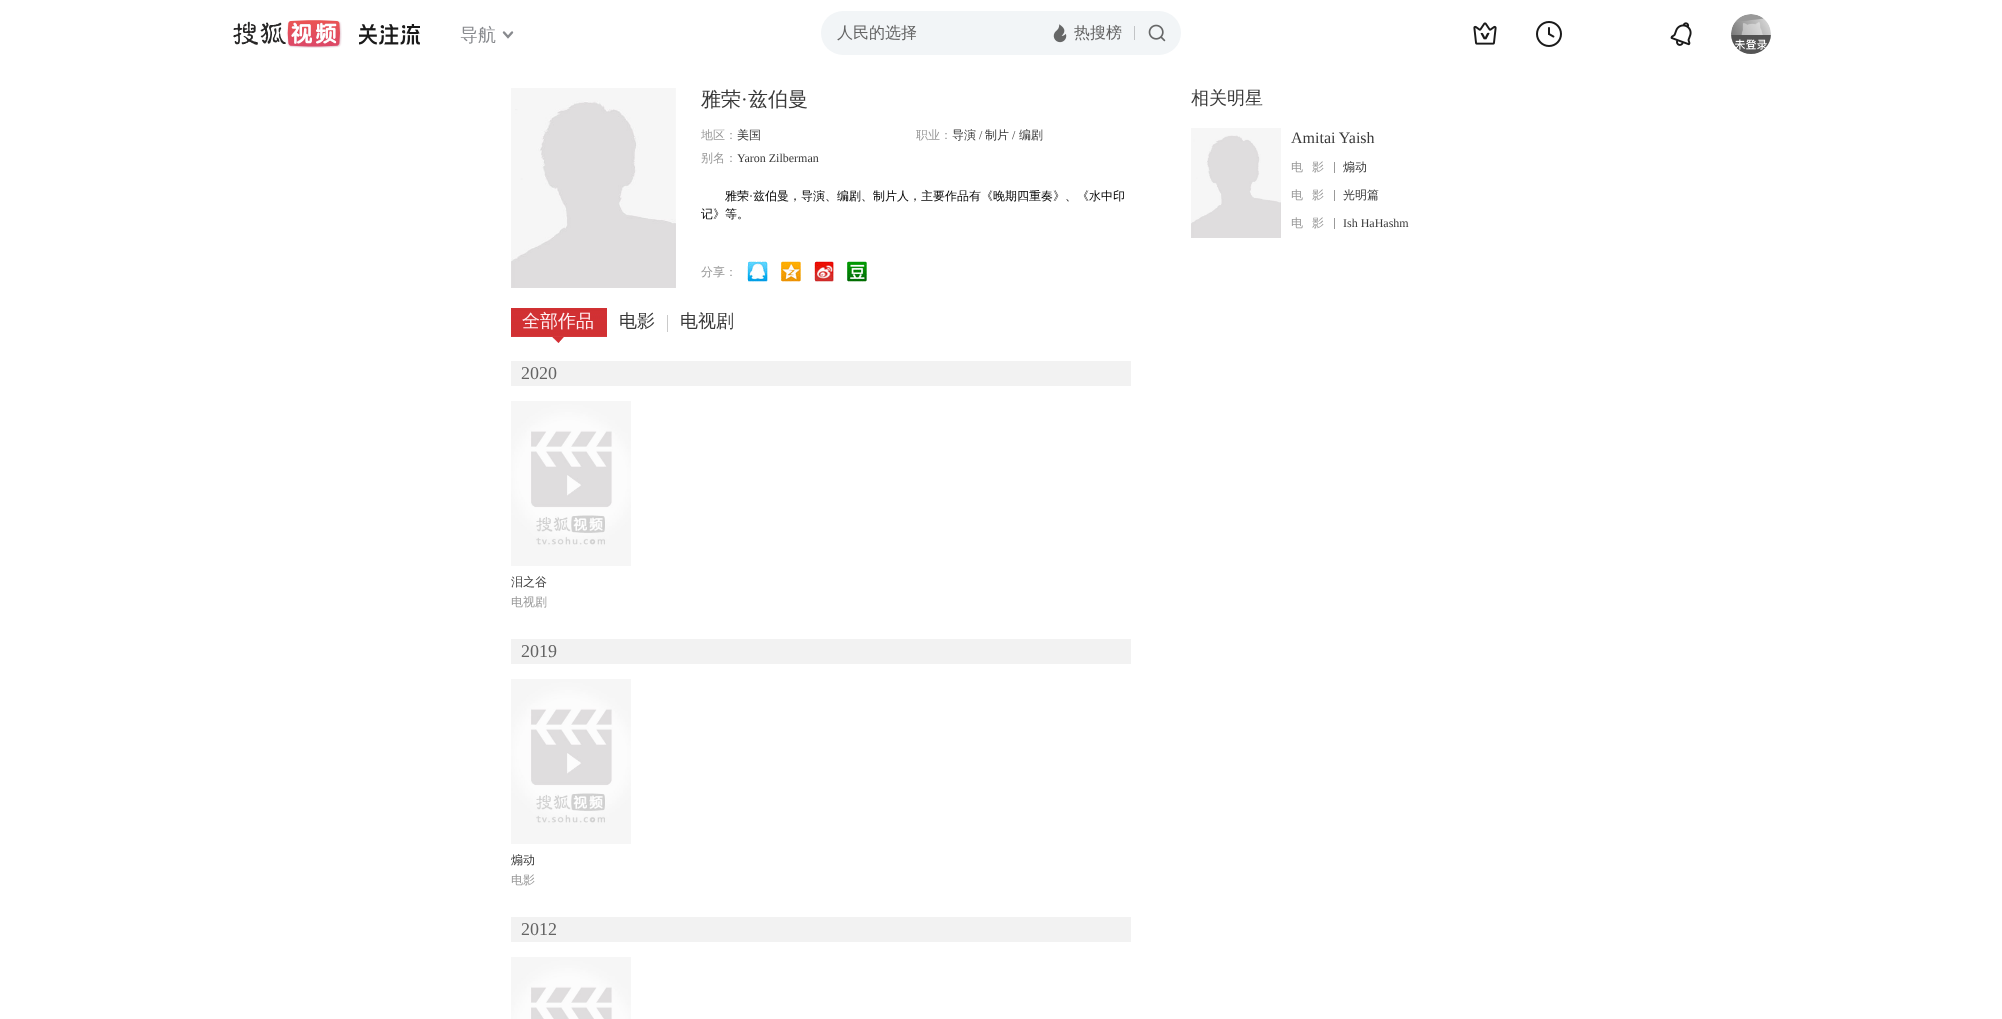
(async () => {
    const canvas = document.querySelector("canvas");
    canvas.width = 2002;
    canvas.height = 1019;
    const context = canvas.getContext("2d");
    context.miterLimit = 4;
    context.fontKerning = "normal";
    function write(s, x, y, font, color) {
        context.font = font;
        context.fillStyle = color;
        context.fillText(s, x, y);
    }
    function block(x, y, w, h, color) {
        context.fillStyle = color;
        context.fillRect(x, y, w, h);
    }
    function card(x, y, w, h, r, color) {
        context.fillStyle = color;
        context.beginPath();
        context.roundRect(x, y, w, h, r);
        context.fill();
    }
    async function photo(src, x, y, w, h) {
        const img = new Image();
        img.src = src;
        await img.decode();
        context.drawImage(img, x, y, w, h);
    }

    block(0, 0, 2002, 1019, "rgb(255, 255, 255)");
    await photo("media/1.png", 233, 20, 109, 28);
    await photo("media/2.png", 359, 24, 61, 21);
    write("导航", 460, 41, "500 18px WenQuanYi Zen Hei", "rgb(136, 138, 142)");
    context.beginPath();
    context.moveTo(504, 32.5);
    context.lineTo(508, 37);
    context.lineTo(512, 32.5);
    context.strokeStyle = "rgb(136, 138, 142)";
    context.lineWidth = 2.4;
    context.lineCap = "round";
    context.stroke();
    card(821, 11, 360, 44, 22, "rgb(242, 245, 247)");
    write("人民的选择", 837, 38, "500 16px WenQuanYi Zen Hei", "rgb(100, 100, 100)");
    await photo("media/3.png", 1053, 24, 14, 19);
    write("热搜榜", 1074, 38, "500 16px WenQuanYi Zen Hei", "rgb(100, 100, 100)");
    block(1134, 26, 1, 14, "rgb(194, 196, 198)");
    await photo("media/4.png", 1148, 24, 18, 18);
    await photo("media/5.png", 1473, 22, 24, 23);
    await photo("media/6.png", 1536, 21, 26, 26);
    await photo("media/7.png", 1670, 22, 22, 24);
    await photo("media/8.png", 1731, 14, 40, 40);
    await photo("media/9.png", 511, 88, 165, 200);
    write("雅荣", 701, 106, "500 20px WenQuanYi Zen Hei", "rgb(58, 58, 58)");
    write("·", 741, 106, "20px Liberation Serif", "rgb(58, 58, 58)");
    write("兹伯曼", 748, 106, "500 20px WenQuanYi Zen Hei", "rgb(58, 58, 58)");
    write("地区：", 701, 139, "500 12px WenQuanYi Zen Hei", "rgb(153, 153, 153)");
    write("美国", 737, 139, "500 12px WenQuanYi Zen Hei", "rgb(58, 58, 58)");
    write("职业：", 916, 139, "500 12px WenQuanYi Zen Hei", "rgb(153, 153, 153)");
    write("导演", 952, 139, "500 12px WenQuanYi Zen Hei", "rgb(58, 58, 58)");
    write("/", 979, 139, "12px Liberation Serif", "rgb(58, 58, 58)");
    write("制片", 985, 139, "500 12px WenQuanYi Zen Hei", "rgb(58, 58, 58)");
    write("/", 1012, 139, "12px Liberation Serif", "rgb(58, 58, 58)");
    write("编剧", 1019, 139, "500 12px WenQuanYi Zen Hei", "rgb(58, 58, 58)");
    write("别名：", 701, 162, "500 12px WenQuanYi Zen Hei", "rgb(153, 153, 153)");
    write("Yaron Zilberman", 737, 162, "12px Liberation Serif", "rgb(58, 58, 58)");
    write("雅荣", 725, 200, "500 12px WenQuanYi Zen Hei", "rgb(0, 0, 0)");
    write("·", 749, 200, "12px Liberation Serif", "rgb(0, 0, 0)");
    write("兹伯曼，导演、编剧、制片人，主要作品有《晚期四重奏》、《水中印", 753, 200, "500 12px WenQuanYi Zen Hei", "rgb(0, 0, 0)");
    write("记》等。", 701, 218, "500 12px WenQuanYi Zen Hei", "rgb(0, 0, 0)");
    write("分享：", 701, 276, "500 12px WenQuanYi Zen Hei", "rgb(153, 153, 153)");
    await photo("media/10.png", 747, 261, 21, 21);
    await photo("media/11.png", 781, 261, 20, 21);
    await photo("media/12.png", 814, 261, 20, 21);
    await photo("media/13.png", 847, 261, 20, 21);
    await photo("media/14.png", 511, 308, 96, 29);
    write("全部作品", 522, 327, "500 18px WenQuanYi Zen Hei", "rgb(255, 240, 243)");
    await photo("media/15.png", 552, 337, 12, 6);
    write("电影", 619, 327, "500 18px WenQuanYi Zen Hei", "rgb(58, 58, 58)");
    block(667, 315, 1, 17, "rgb(202, 202, 202)");
    write("电视剧", 680, 327, "500 18px WenQuanYi Zen Hei", "rgb(58, 58, 58)");
    block(511, 361, 620, 25, "rgb(242, 242, 242)");
    write("2020", 521, 379, "18px Liberation Serif", "rgb(100, 100, 100)");
    await photo("media/16.png", 511, 401, 120, 165);
    write("泪之谷", 511, 586, "500 12px WenQuanYi Zen Hei", "rgb(58, 58, 58)");
    write("电视剧", 511, 606, "500 12px WenQuanYi Zen Hei", "rgb(153, 153, 153)");
    block(511, 639, 620, 25, "rgb(242, 242, 242)");
    write("2019", 521, 657, "18px Liberation Serif", "rgb(100, 100, 100)");
    await photo("media/16.png", 511, 679, 120, 165);
    write("煽动", 511, 864, "500 12px WenQuanYi Zen Hei", "rgb(58, 58, 58)");
    write("电影", 511, 884, "500 12px WenQuanYi Zen Hei", "rgb(153, 153, 153)");
    block(511, 917, 620, 25, "rgb(242, 242, 242)");
    write("2012", 521, 935, "18px Liberation Serif", "rgb(100, 100, 100)");
    await photo("media/17.png", 511, 957, 120, 62);
    write("相关明星", 1191, 104, "500 18px WenQuanYi Zen Hei", "rgb(58, 58, 58)");
    await photo("media/18.png", 1191, 128, 90, 110);
    write("Amitai Yaish", 1291, 143, "16px Liberation Serif", "rgb(58, 58, 58)");
    block(1334, 162, 1, 11, "rgb(153, 153, 153)");
    write("电", 1291, 171, "500 12px WenQuanYi Zen Hei", "rgb(153, 153, 153)");
    write("影", 1312, 171, "500 12px WenQuanYi Zen Hei", "rgb(153, 153, 153)");
    write("煽动", 1343, 171, "500 12px WenQuanYi Zen Hei", "rgb(58, 58, 58)");
    block(1334, 190, 1, 11, "rgb(153, 153, 153)");
    write("电", 1291, 199, "500 12px WenQuanYi Zen Hei", "rgb(153, 153, 153)");
    write("影", 1312, 199, "500 12px WenQuanYi Zen Hei", "rgb(153, 153, 153)");
    write("光明篇", 1343, 199, "500 12px WenQuanYi Zen Hei", "rgb(58, 58, 58)");
    block(1334, 218, 1, 11, "rgb(153, 153, 153)");
    write("电", 1291, 227, "500 12px WenQuanYi Zen Hei", "rgb(153, 153, 153)");
    write("影", 1312, 227, "500 12px WenQuanYi Zen Hei", "rgb(153, 153, 153)");
    write("Ish HaHashm", 1343, 227, "12px Liberation Serif", "rgb(58, 58, 58)");
})();
